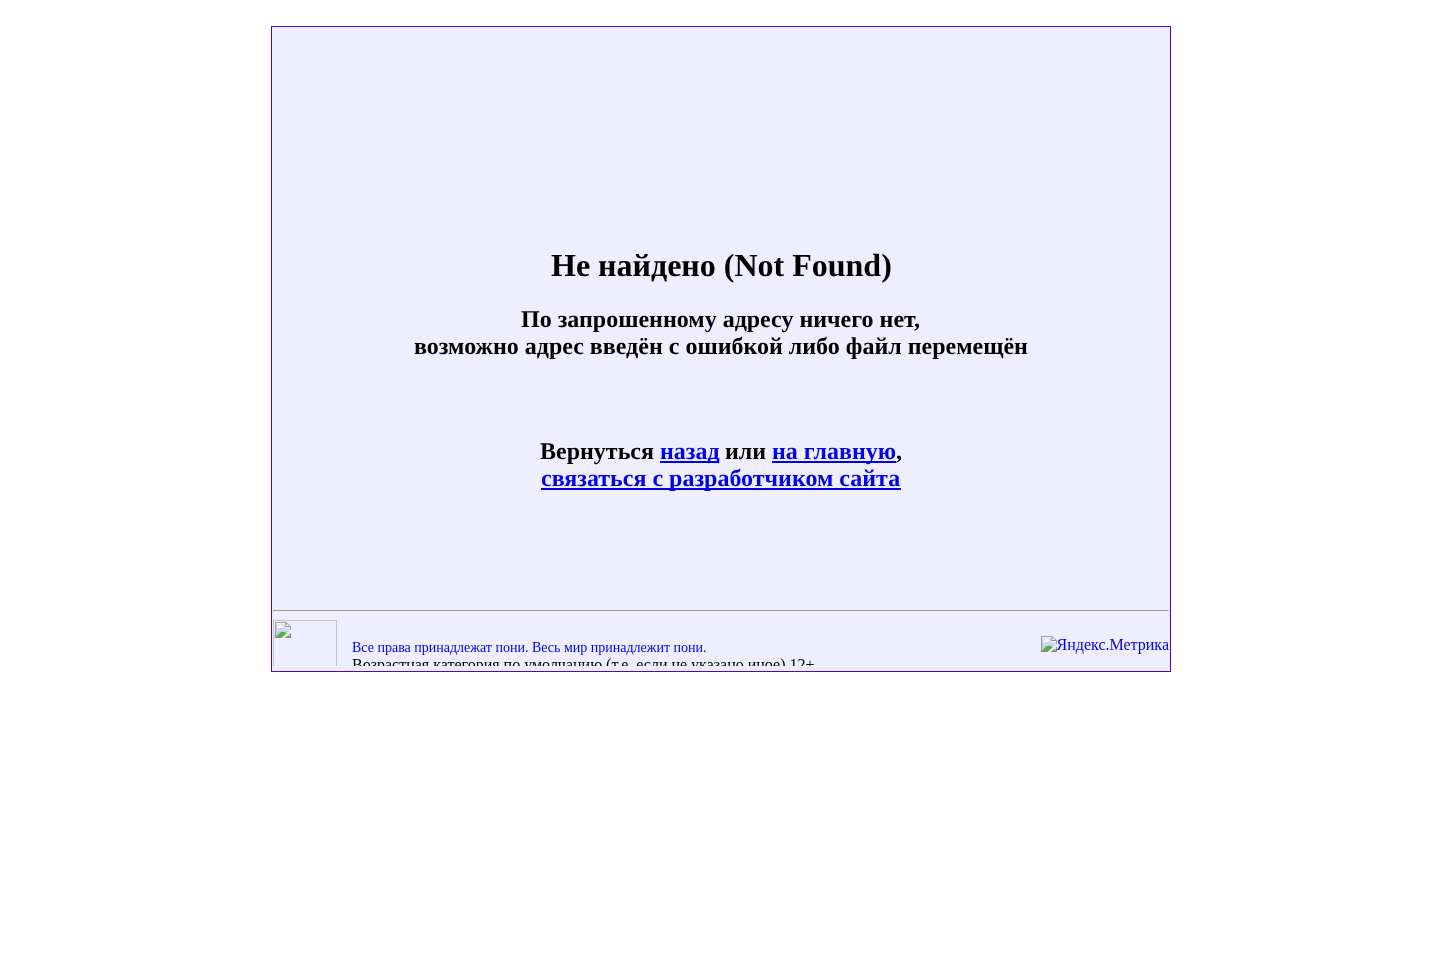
(async () => {
    const canvas = document.querySelector("canvas");
    canvas.width = 1442;
    canvas.height = 963;
    const context = canvas.getContext("2d");
    context.miterLimit = 4;
    context.fontKerning = "normal";
    function write(s, x, y, font, color) {
        context.font = font;
        context.fillStyle = color;
        context.fillText(s, x, y);
    }
    function block(x, y, w, h, color) {
        context.fillStyle = color;
        context.fillRect(x, y, w, h);
    }
    async function photo(src, x, y, w, h) {
        const img = new Image();
        img.src = src;
        await img.decode();
        context.drawImage(img, x, y, w, h);
    }

    block(0, 0, 1442, 963, "rgb(255, 255, 255)");
    block(272, 27, 898, 644, "rgb(238, 238, 255)");
    block(271, 26, 900, 1, "rgb(85, 0, 204)");
    block(1170, 26, 1, 646, "rgb(85, 0, 204)");
    block(271, 671, 900, 1, "rgb(85, 0, 204)");
    block(271, 26, 1, 646, "rgb(85, 0, 204)");
    write("Не найдено (Not Found)", 551, 276, "bold 32px Liberation Serif", "rgb(0, 0, 0)");
    write("По запрошенному адресу ничего нет,", 521, 327, "bold 24px Liberation Serif", "rgb(0, 0, 0)");
    write("возможно адрес введён с ошибкой либо файл перемещён", 414, 354, "bold 24px Liberation Serif", "rgb(0, 0, 0)");
    write("Вернуться", 540, 459, "bold 24px Liberation Serif", "rgb(0, 0, 0)");
    block(660, 461, 59, 2, "rgb(0, 0, 238)");
    write("назад", 660, 459, "bold 24px Liberation Serif", "rgb(0, 0, 238)");
    write("или", 725, 459, "bold 24px Liberation Serif", "rgb(0, 0, 0)");
    block(772, 461, 124, 2, "rgb(0, 0, 238)");
    write("на главную", 772, 459, "bold 24px Liberation Serif", "rgb(0, 0, 238)");
    write(",", 896, 459, "bold 24px Liberation Serif", "rgb(0, 0, 0)");
    block(541, 488, 360, 2, "rgb(0, 0, 238)");
    write("связаться с разработчиком сайта", 541, 486, "bold 24px Liberation Serif", "rgb(0, 0, 238)");
    await photo("media/1.png", 273, 610, 896, 56);
})();
